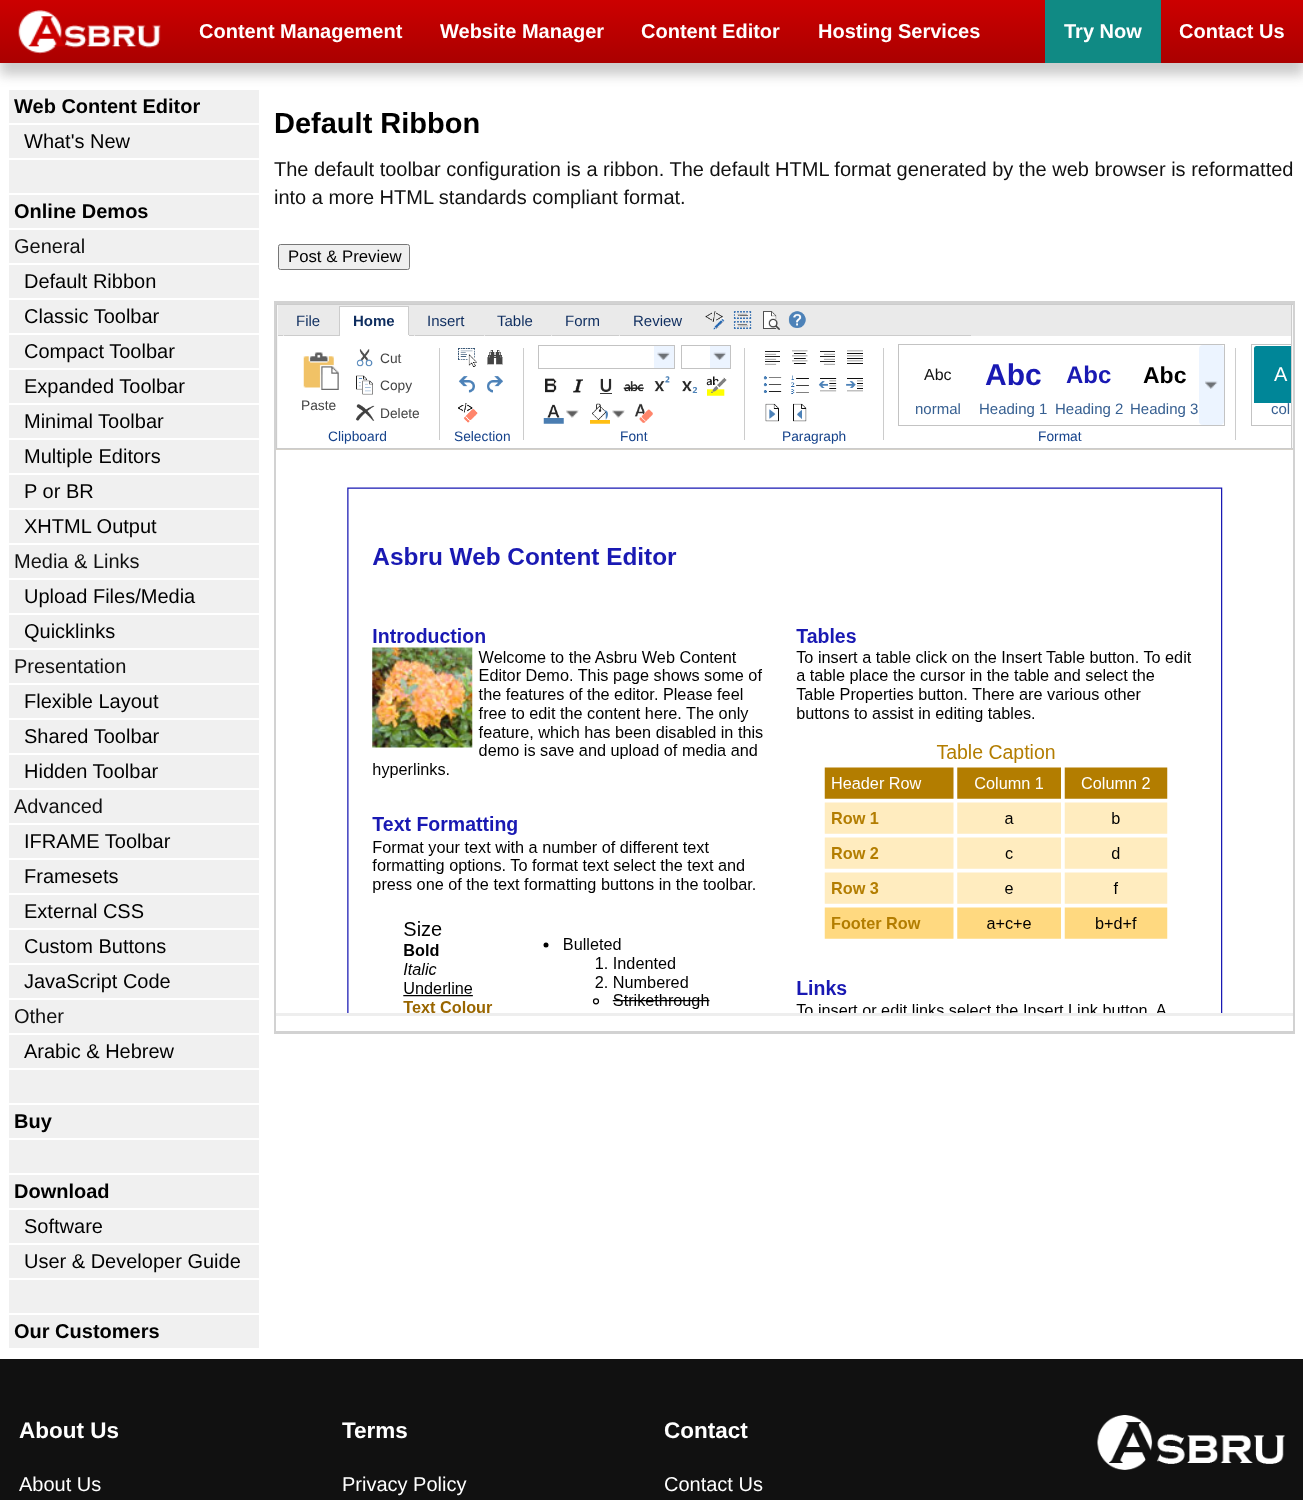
(async () => {
    const canvas = document.querySelector("canvas");
    canvas.width = 1303;
    canvas.height = 1500;
    const context = canvas.getContext("2d");
    context.miterLimit = 4;
    context.fontKerning = "normal";
    function write(s, x, y, font, color) {
        context.font = font;
        context.fillStyle = color;
        context.fillText(s, x, y);
    }
    function block(x, y, w, h, color) {
        context.fillStyle = color;
        context.fillRect(x, y, w, h);
    }
    function card(x, y, w, h, r, color) {
        context.fillStyle = color;
        context.beginPath();
        context.roundRect(x, y, w, h, r);
        context.fill();
    }
    async function photo(src, x, y, w, h) {
        const img = new Image();
        img.src = src;
        await img.decode();
        context.drawImage(img, x, y, w, h);
    }
    let gradient;

    block(0, 0, 1303, 1500, "rgb(255, 255, 255)");
    block(9, 90, 250, 33, "rgb(240, 240, 240)");
    context.fillStyle = "rgba(50, 50, 50, 0.25)";
    context.filter = "blur(6px)";
    context.beginPath();
    context.rect(0, 13, 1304, 62);
    context.fill();
    context.filter = "none";
    gradient = context.createLinearGradient(652, 0, 652, 63);
    gradient.addColorStop(0, "rgb(204, 0, 0)");
    gradient.addColorStop(1, "rgb(170, 0, 0)");
    context.fillStyle = gradient;
    context.fillRect(0, 0, 1303, 63);
    await photo("media/1.png", 18, 10, 143, 44);
    write("Content Management", 199, 38, "bold 20px Liberation Sans", "rgb(255, 255, 255)");
    write("Website Manager", 440, 38, "bold 20px Liberation Sans", "rgb(255, 255, 255)");
    write("Content Editor", 641, 38, "bold 20px Liberation Sans", "rgb(255, 255, 255)");
    write("Hosting Services", 818, 38, "bold 20px Liberation Sans", "rgb(255, 255, 255)");
    block(1045, 0, 116, 63, "rgb(16, 138, 132)");
    write("Try Now", 1064, 38, "bold 20px Liberation Sans", "rgb(255, 255, 255)");
    write("Contact Us", 1179, 38, "bold 20px Liberation Sans", "rgb(255, 255, 255)");
    write("Web Content Editor", 14, 113, "bold 20px Liberation Sans", "rgb(0, 0, 0)");
    block(9, 125, 250, 33, "rgb(240, 240, 240)");
    write("What's New", 24, 148, "20px Liberation Sans", "rgb(0, 0, 0)");
    block(9, 160, 250, 33, "rgb(240, 240, 240)");
    block(9, 195, 250, 33, "rgb(240, 240, 240)");
    write("Online Demos", 14, 218, "bold 20px Liberation Sans", "rgb(0, 0, 0)");
    block(9, 230, 250, 33, "rgb(240, 240, 240)");
    write("General", 14, 253, "20px Liberation Sans", "rgb(17, 17, 17)");
    block(9, 265, 250, 33, "rgb(240, 240, 240)");
    write("Default Ribbon", 24, 288, "20px Liberation Sans", "rgb(0, 0, 0)");
    block(9, 300, 250, 33, "rgb(240, 240, 240)");
    write("Classic Toolbar", 24, 323, "20px Liberation Sans", "rgb(0, 0, 0)");
    block(9, 335, 250, 33, "rgb(240, 240, 240)");
    write("Compact Toolbar", 24, 358, "20px Liberation Sans", "rgb(0, 0, 0)");
    block(9, 370, 250, 33, "rgb(240, 240, 240)");
    write("Expanded Toolbar", 24, 393, "20px Liberation Sans", "rgb(0, 0, 0)");
    block(9, 405, 250, 33, "rgb(240, 240, 240)");
    write("Minimal Toolbar", 24, 428, "20px Liberation Sans", "rgb(0, 0, 0)");
    block(9, 440, 250, 33, "rgb(240, 240, 240)");
    write("Multiple Editors", 24, 463, "20px Liberation Sans", "rgb(0, 0, 0)");
    block(9, 475, 250, 33, "rgb(240, 240, 240)");
    write("P or BR", 24, 498, "20px Liberation Sans", "rgb(0, 0, 0)");
    block(9, 510, 250, 33, "rgb(240, 240, 240)");
    write("XHTML Output", 24, 533, "20px Liberation Sans", "rgb(0, 0, 0)");
    block(9, 545, 250, 33, "rgb(240, 240, 240)");
    write("Media & Links", 14, 568, "20px Liberation Sans", "rgb(17, 17, 17)");
    block(9, 580, 250, 33, "rgb(240, 240, 240)");
    write("Upload Files/Media", 24, 603, "20px Liberation Sans", "rgb(0, 0, 0)");
    block(9, 615, 250, 33, "rgb(240, 240, 240)");
    write("Quicklinks", 24, 638, "20px Liberation Sans", "rgb(0, 0, 0)");
    block(9, 650, 250, 33, "rgb(240, 240, 240)");
    write("Presentation", 14, 673, "20px Liberation Sans", "rgb(17, 17, 17)");
    block(9, 685, 250, 33, "rgb(240, 240, 240)");
    write("Flexible Layout", 24, 708, "20px Liberation Sans", "rgb(0, 0, 0)");
    block(9, 720, 250, 33, "rgb(240, 240, 240)");
    write("Shared Toolbar", 24, 743, "20px Liberation Sans", "rgb(0, 0, 0)");
    block(9, 755, 250, 33, "rgb(240, 240, 240)");
    write("Hidden Toolbar", 24, 778, "20px Liberation Sans", "rgb(0, 0, 0)");
    block(9, 790, 250, 33, "rgb(240, 240, 240)");
    write("Advanced", 14, 813, "20px Liberation Sans", "rgb(17, 17, 17)");
    block(9, 825, 250, 33, "rgb(240, 240, 240)");
    write("IFRAME Toolbar", 24, 848, "20px Liberation Sans", "rgb(0, 0, 0)");
    block(9, 860, 250, 33, "rgb(240, 240, 240)");
    write("Framesets", 24, 883, "20px Liberation Sans", "rgb(0, 0, 0)");
    block(9, 895, 250, 33, "rgb(240, 240, 240)");
    write("External CSS", 24, 918, "20px Liberation Sans", "rgb(0, 0, 0)");
    block(9, 930, 250, 33, "rgb(240, 240, 240)");
    write("Custom Buttons", 24, 953, "20px Liberation Sans", "rgb(0, 0, 0)");
    block(9, 965, 250, 33, "rgb(240, 240, 240)");
    write("JavaScript Code", 24, 988, "20px Liberation Sans", "rgb(0, 0, 0)");
    block(9, 1000, 250, 33, "rgb(240, 240, 240)");
    write("Other", 14, 1023, "20px Liberation Sans", "rgb(17, 17, 17)");
    block(9, 1035, 250, 33, "rgb(240, 240, 240)");
    write("Arabic & Hebrew", 24, 1058, "20px Liberation Sans", "rgb(0, 0, 0)");
    block(9, 1070, 250, 33, "rgb(240, 240, 240)");
    block(9, 1105, 250, 33, "rgb(240, 240, 240)");
    write("Buy", 14, 1128, "bold 20px Liberation Sans", "rgb(0, 0, 0)");
    block(9, 1140, 250, 33, "rgb(240, 240, 240)");
    block(9, 1175, 250, 33, "rgb(240, 240, 240)");
    write("Download", 14, 1198, "bold 20px Liberation Sans", "rgb(0, 0, 0)");
    block(9, 1210, 250, 33, "rgb(240, 240, 240)");
    write("Software", 24, 1233, "20px Liberation Sans", "rgb(0, 0, 0)");
    block(9, 1245, 250, 33, "rgb(240, 240, 240)");
    write("User & Developer Guide", 24, 1268, "20px Liberation Sans", "rgb(0, 0, 0)");
    block(9, 1280, 250, 33, "rgb(240, 240, 240)");
    block(9, 1315, 250, 33, "rgb(240, 240, 240)");
    write("Our Customers", 14, 1338, "bold 20px Liberation Sans", "rgb(0, 0, 0)");
    write("Default Ribbon", 274, 133, "bold 29px Liberation Sans", "rgb(0, 0, 0)");
    write("The default toolbar configuration is a ribbon. The default HTML format generated by the web browser is reformatted", 274, 176, "20px Liberation Sans", "rgb(17, 17, 17)");
    write("into a more HTML standards compliant format.", 274, 204, "20px Liberation Sans", "rgb(17, 17, 17)");
    context.fillStyle = "rgb(239, 239, 239)";
    context.beginPath();
    context.roundRect(278.5, 244.5, 131, 25, 2);
    context.fill();
    context.strokeStyle = "rgb(118, 118, 118)";
    context.stroke();
    write("Post & Preview", 288, 262, "16.75px Liberation Sans", "rgb(0, 0, 0)");
    context.strokeStyle = "rgb(210, 210, 210)";
    context.lineWidth = 3;
    context.strokeRect(275.5, 302.5, 1018, 730);
    block(277, 305, 1016, 143, "rgb(248, 248, 248)");
    block(278, 305, 1013, 31, "rgb(234, 234, 234)");
    block(276, 304, 1017, 1, "rgb(204, 204, 204)");
    block(1291, 304, 1, 32, "rgb(204, 204, 204)");
    block(276, 304, 1, 32, "rgb(204, 204, 204)");
    block(278, 335, 693, 1, "rgb(204, 204, 204)");
    block(333, 335, 1, 1, "rgb(234, 234, 234)");
    block(333, 335, 1, 1, "rgb(204, 204, 204)");
    block(283, 335, 1, 1, "rgb(234, 234, 234)");
    write("File", 296, 326, "15px Liberation Sans", "rgb(14, 45, 95)");
    block(340, 307, 68, 28, "rgb(255, 255, 255)");
    block(339, 306, 70, 1, "rgb(204, 204, 204)");
    block(408, 306, 1, 30, "rgb(204, 204, 204)");
    block(339, 335, 70, 1, "rgb(255, 255, 255)");
    block(339, 306, 1, 30, "rgb(204, 204, 204)");
    write("Home", 353, 326, "bold 15px Liberation Sans", "rgb(14, 45, 95)");
    block(478, 335, 1, 1, "rgb(234, 234, 234)");
    block(478, 335, 1, 1, "rgb(204, 204, 204)");
    block(414, 335, 1, 1, "rgb(234, 234, 234)");
    write("Insert", 427, 326, "15px Liberation Sans", "rgb(14, 45, 95)");
    block(545, 335, 1, 1, "rgb(234, 234, 234)");
    block(545, 335, 1, 1, "rgb(204, 204, 204)");
    block(484, 335, 1, 1, "rgb(234, 234, 234)");
    write("Table", 497, 326, "15px Liberation Sans", "rgb(14, 45, 95)");
    block(613, 335, 1, 1, "rgb(234, 234, 234)");
    block(613, 335, 1, 1, "rgb(204, 204, 204)");
    block(551, 335, 1, 1, "rgb(234, 234, 234)");
    write("Form", 565, 326, "15px Liberation Sans", "rgb(14, 45, 95)");
    block(695, 335, 1, 1, "rgb(234, 234, 234)");
    block(695, 335, 1, 1, "rgb(204, 204, 204)");
    block(619, 335, 1, 1, "rgb(234, 234, 234)");
    write("Review", 633, 326, "15px Liberation Sans", "rgb(14, 45, 95)");
    await photo("media/2.png", 705, 311, 20, 19);
    await photo("media/3.png", 733, 311, 19, 18);
    await photo("media/4.png", 763, 311, 17, 19);
    await photo("media/5.png", 788, 311, 18, 17);
    block(1291, 336, 1, 113, "rgb(204, 204, 204)");
    block(276, 448, 1017, 1, "rgb(204, 204, 204)");
    block(276, 336, 1, 113, "rgb(204, 204, 204)");
    block(278, 336, 1013, 112, "rgb(255, 255, 255)");
    await photo("media/6.png", 303, 352, 36, 38);
    write("Paste", 301, 410, "13.75px Liberation Sans", "rgb(68, 68, 68)");
    await photo("media/7.png", 356, 349, 17, 18);
    write("Cut", 380, 363, "13.75px Liberation Sans", "rgb(68, 68, 68)");
    await photo("media/8.png", 356, 375, 17, 20);
    write("Copy", 380, 390, "13.75px Liberation Sans", "rgb(68, 68, 68)");
    await photo("media/9.png", 355, 404, 20, 17);
    write("Delete", 380, 418, "13.75px Liberation Sans", "rgb(68, 68, 68)");
    write("Clipboard", 328, 441, "13.75px Liberation Sans", "rgb(21, 66, 139)");
    block(439, 348, 1, 92, "rgb(204, 204, 204)");
    block(523, 348, 1, 92, "rgb(204, 204, 204)");
    block(744, 348, 1, 92, "rgb(204, 204, 204)");
    block(883, 348, 1, 92, "rgb(204, 204, 204)");
    context.strokeStyle = "rgb(195, 195, 195)";
    context.lineWidth = 1;
    context.strokeRect(898.5, 344.5, 326, 81);
    write("Abc", 924, 380, "16px Liberation Sans", "rgb(17, 17, 17)");
    write("normal", 915, 414, "15px Liberation Sans", "rgb(54, 95, 145)");
    write("Abc", 985, 385, "bold 30px Liberation Sans", "rgb(25, 25, 179)");
    write("Heading 1", 979, 414, "15px Liberation Sans", "rgb(54, 95, 145)");
    write("Abc", 1066, 383, "bold 24px Liberation Sans", "rgb(25, 25, 179)");
    write("Heading 2", 1055, 414, "15px Liberation Sans", "rgb(54, 95, 145)");
    write("Abc", 1143, 383, "bold 23px Liberation Sans", "rgb(0, 0, 0)");
    write("Heading 3", 1130, 414, "15px Liberation Sans", "rgb(54, 95, 145)");
    card(1199, 345, 25, 80, 4, "rgb(236, 244, 255)");
    await photo("media/10.png", 1205, 381, 13, 8);
    write("Format", 1038, 441, "13.75px Liberation Sans", "rgb(21, 66, 139)");
    block(1235, 348, 1, 92, "rgb(204, 204, 204)");
    context.save();
    context.beginPath();
    context.rect(278, 336, 1013, 112);
    context.clip();
    context.strokeRect(1251.5, 344.5, 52, 81);
    context.restore();
    context.fillStyle = "rgb(0, 134, 152)";
    context.beginPath();
    context.roundRect(1254, 346, 37, 57, [2.5, 0, 0, 0]);
    context.fill();
    write("A", 1274, 381, "20px Liberation Sans", "rgb(255, 255, 255)");
    write("col", 1271, 414, "15px Liberation Sans", "rgb(54, 95, 145)");
    await photo("media/11.png", 458, 348, 19, 19);
    await photo("media/12.png", 487, 350, 16, 15);
    await photo("media/13.png", 458, 376, 17, 17);
    await photo("media/14.png", 487, 376, 16, 17);
    await photo("media/15.png", 458, 403, 20, 20);
    write("Selection", 454, 441, "13.75px Liberation Sans", "rgb(21, 66, 139)");
    context.strokeRect(538.5, 345.5, 136, 23);
    block(654, 346, 20, 22, "rgb(236, 244, 255)");
    await photo("media/16.png", 657, 352, 13, 8);
    context.strokeRect(681.5, 345.5, 49, 23);
    block(710, 346, 20, 22, "rgb(236, 244, 255)");
    await photo("media/17.png", 713, 352, 13, 8);
    await photo("media/18.png", 545, 378, 12, 15);
    await photo("media/19.png", 573, 379, 10, 14);
    await photo("media/20.png", 600, 378, 12, 16);
    await photo("media/21.png", 623, 381, 21, 11);
    await photo("media/22.png", 654, 376, 16, 16);
    await photo("media/23.png", 682, 381, 16, 12);
    await photo("media/24.png", 706, 376, 21, 20);
    await photo("media/25.png", 543, 404, 21, 20);
    await photo("media/26.png", 566, 410, 13, 8);
    await photo("media/27.png", 590, 403, 20, 21);
    await photo("media/28.png", 612, 410, 13, 8);
    await photo("media/29.png", 634, 403, 19, 20);
    write("Font", 620, 441, "13.75px Liberation Sans", "rgb(21, 66, 139)");
    await photo("media/30.png", 765, 351, 15, 14);
    await photo("media/31.png", 792, 350, 16, 14);
    await photo("media/32.png", 820, 351, 15, 14);
    await photo("media/33.png", 847, 350, 16, 14);
    await photo("media/34.png", 763, 376, 19, 17);
    await photo("media/35.png", 791, 375, 18, 19);
    await photo("media/36.png", 818, 378, 19, 14);
    await photo("media/37.png", 846, 378, 17, 14);
    await photo("media/38.png", 765, 403, 14, 19);
    await photo("media/39.png", 793, 403, 14, 19);
    write("Paragraph", 782, 441, "13.75px Liberation Sans", "rgb(21, 66, 139)");
    block(276, 449, 1017, 1, "rgb(212, 208, 200)");
    await photo("media/40.png", 276, 450, 1017, 563);
    block(276, 1013, 1017, 3, "rgb(238, 238, 238)");
    block(276, 1016, 1017, 15, "rgb(255, 255, 255)");
    block(0, 1359, 1303, 141, "rgb(17, 17, 17)");
    write("About Us", 19, 1438, "bold 22.5px Liberation Sans", "rgb(255, 255, 255)");
    write("About Us", 19, 1491, "20px Liberation Sans", "rgb(255, 255, 255)");
    write("Terms", 342, 1438, "bold 22.5px Liberation Sans", "rgb(255, 255, 255)");
    write("Privacy Policy", 342, 1491, "20px Liberation Sans", "rgb(255, 255, 255)");
    write("Contact", 664, 1438, "bold 22.5px Liberation Sans", "rgb(255, 255, 255)");
    write("Contact Us", 664, 1491, "20px Liberation Sans", "rgb(255, 255, 255)");
    await photo("media/41.png", 1097, 1415, 188, 55);
})();
